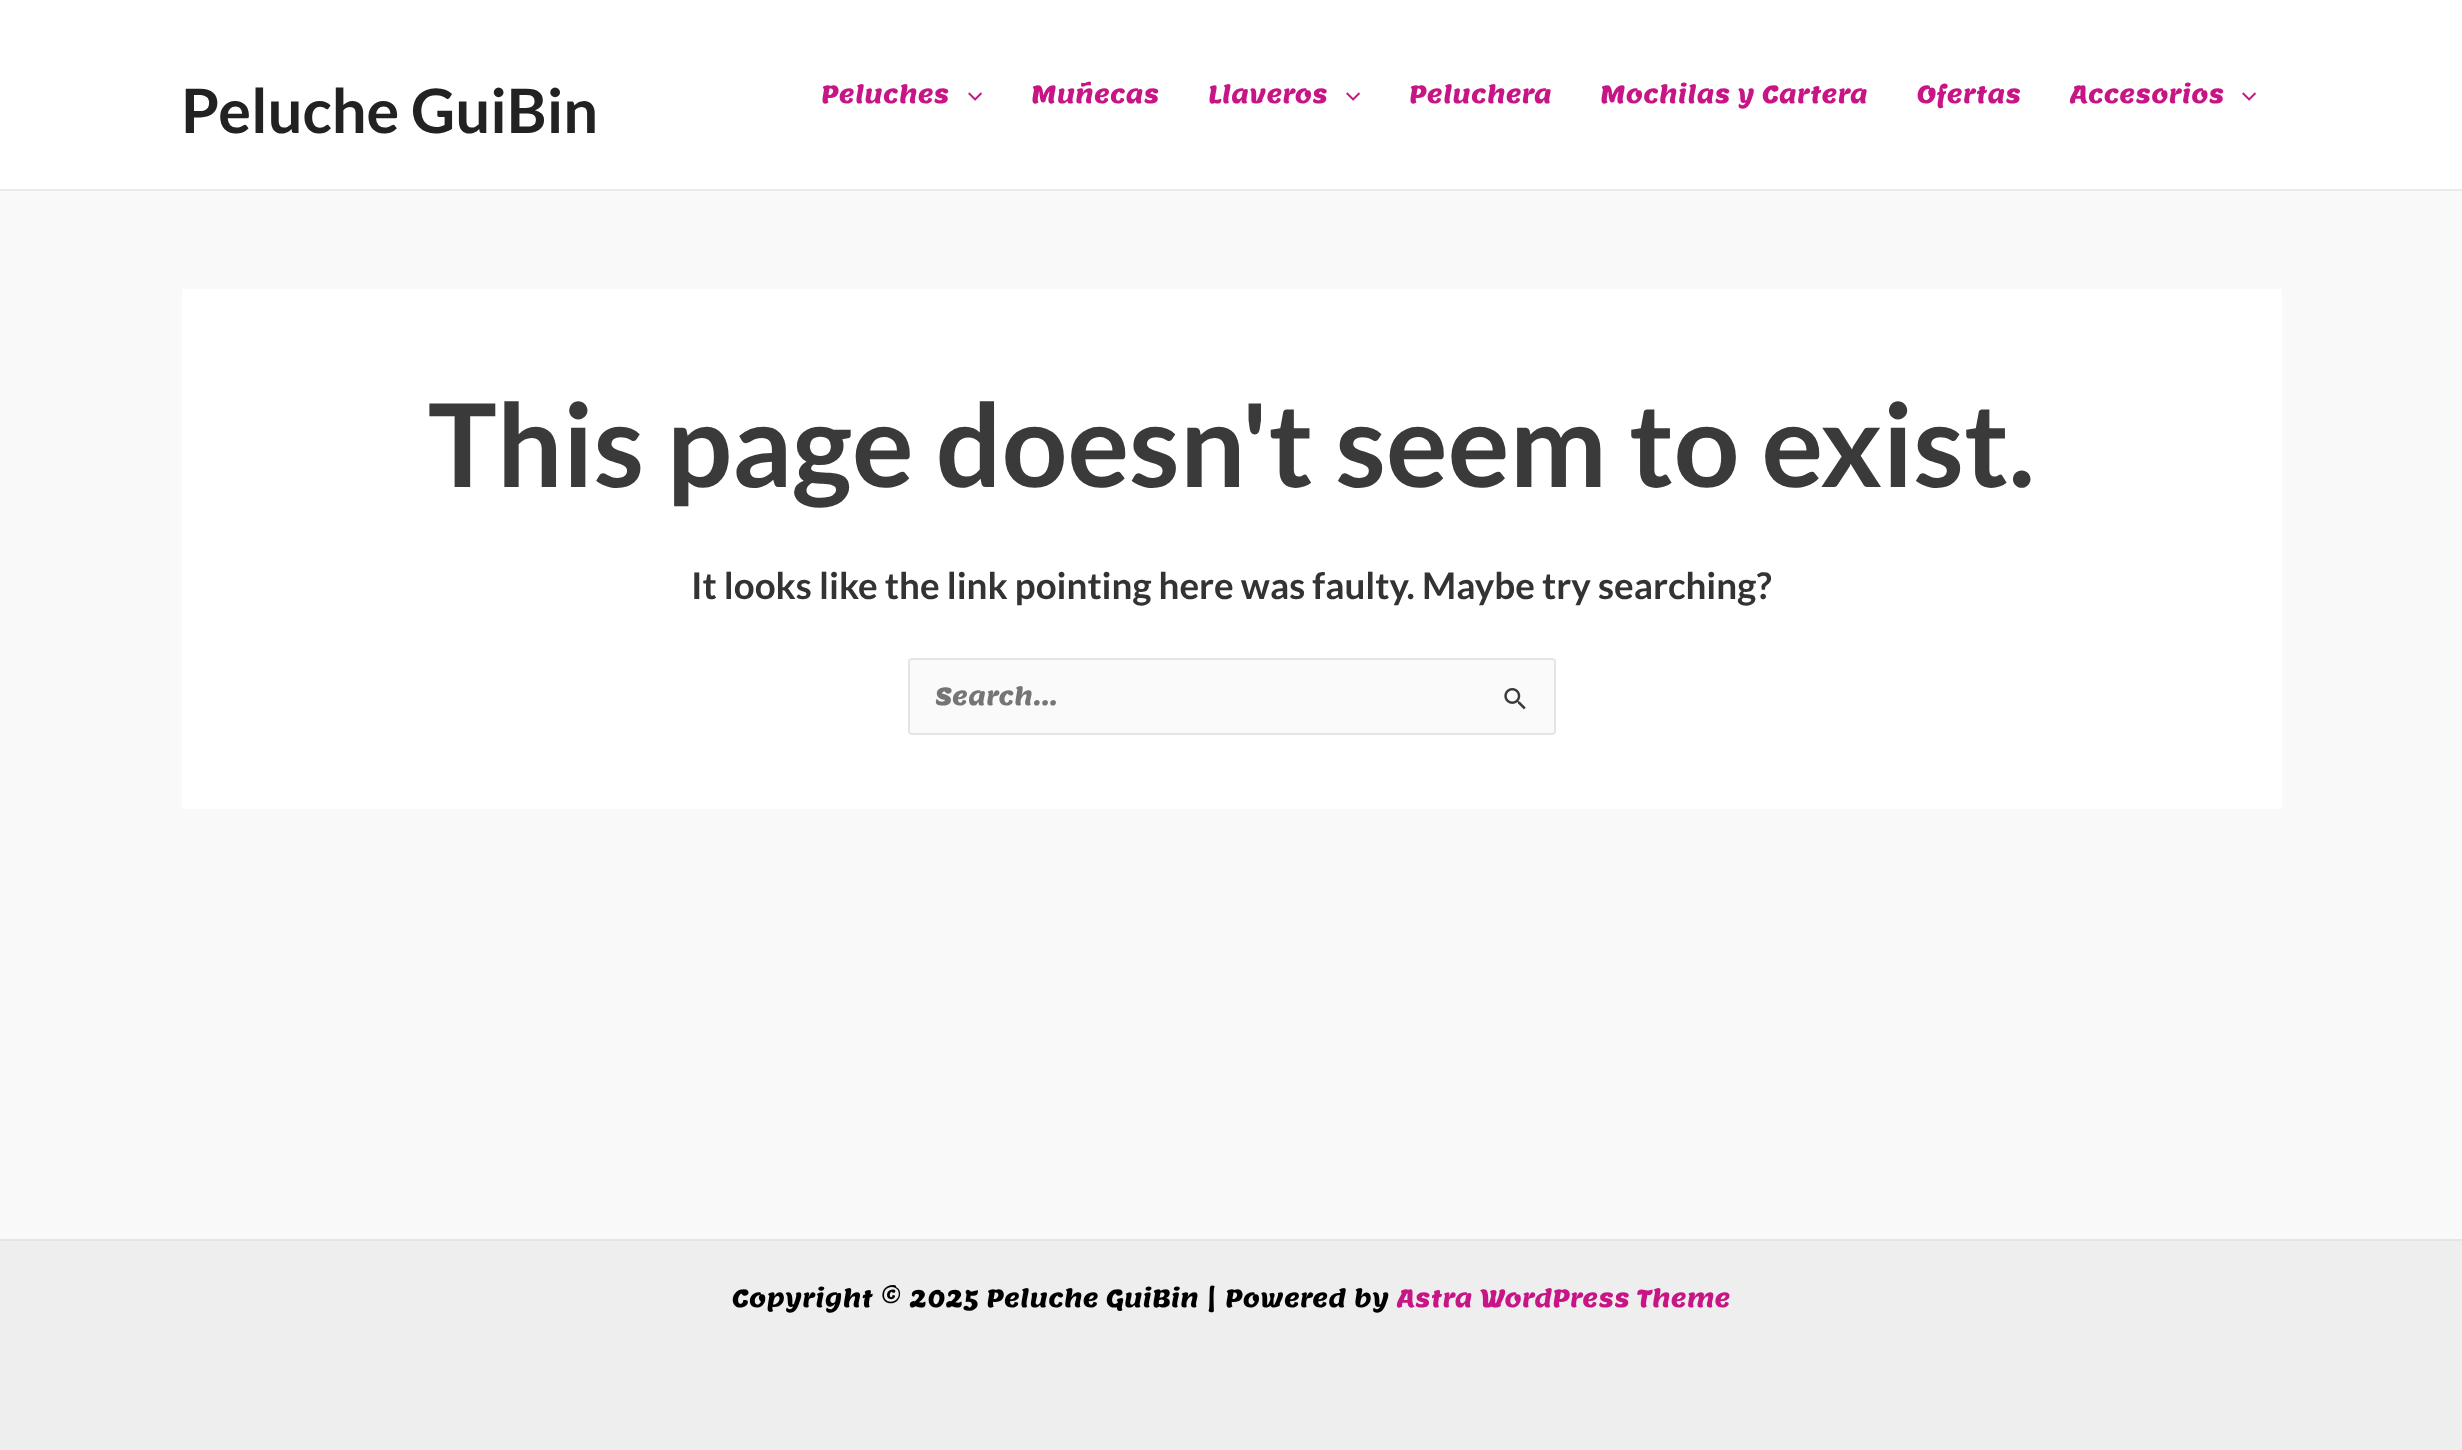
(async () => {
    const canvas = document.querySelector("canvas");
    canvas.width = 2462;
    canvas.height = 1450;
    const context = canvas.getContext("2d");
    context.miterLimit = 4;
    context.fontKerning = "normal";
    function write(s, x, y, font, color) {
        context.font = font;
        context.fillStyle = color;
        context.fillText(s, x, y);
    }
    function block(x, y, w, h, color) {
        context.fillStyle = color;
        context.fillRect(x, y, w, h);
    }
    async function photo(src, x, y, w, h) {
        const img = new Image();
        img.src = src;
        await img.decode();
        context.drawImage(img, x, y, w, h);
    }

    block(0, 0, 2462, 1450, "rgb(249, 249, 249)");
    block(0, 0, 2462, 189, "rgb(255, 255, 255)");
    block(0, 189, 2462, 2, "rgb(234, 234, 234)");
    write("Peluche GuiBin", 181, 133, "bold 61.25px Lato", "rgb(34, 34, 34)");
    write("Peluches", 821, 103, "24.5px Lemon", "rgb(199, 21, 133)");
    await photo("media/1.png", 968, 92, 14, 9);
    write("Muñecas", 1031, 103, "24.5px Lemon", "rgb(199, 21, 133)");
    write("Llaveros", 1208, 103, "24.5px Lemon", "rgb(199, 21, 133)");
    await photo("media/1.png", 1346, 92, 14, 9);
    write("Peluchera", 1409, 103, "24.5px Lemon", "rgb(199, 21, 133)");
    write("Mochilas y Cartera", 1600, 103, "24.5px Lemon", "rgb(199, 21, 133)");
    write("Ofertas", 1917, 103, "24.5px Lemon", "rgb(199, 21, 133)");
    write("Accesorios", 2070, 103, "24.5px Lemon", "rgb(199, 21, 133)");
    await photo("media/2.png", 2242, 92, 15, 9);
    block(182, 289, 2100, 520, "rgb(255, 255, 255)");
    write("This page doesn't seem to exist.", 428, 487, "bold 115.5px Lato", "rgb(58, 58, 58)");
    write("It looks like the link pointing here was faulty. Maybe try searching?", 691, 599, "bold 36.75px Lato", "rgb(51, 51, 51)");
    context.fillStyle = "rgb(250, 250, 250)";
    context.beginPath();
    context.roundRect(909, 659, 646, 75, 3);
    context.fill();
    context.strokeStyle = "rgb(229, 229, 229)";
    context.lineWidth = 2;
    context.stroke();
    write("Search...", 935, 705, "24.5px Lemon", "rgb(117, 117, 117)");
    await photo("media/3.png", 1504, 688, 22, 22);
    block(0, 1241, 2462, 209, "rgb(238, 238, 238)");
    block(0, 1239, 2462, 2, "rgb(229, 229, 229)");
    write("Copyright © 2025 Peluche GuiBin | Powered by", 732, 1307, "24.5px Lemon", "rgb(0, 0, 0)");
    write("Astra WordPress Theme", 1397, 1307, "24.5px Lemon", "rgb(199, 21, 133)");
})();
